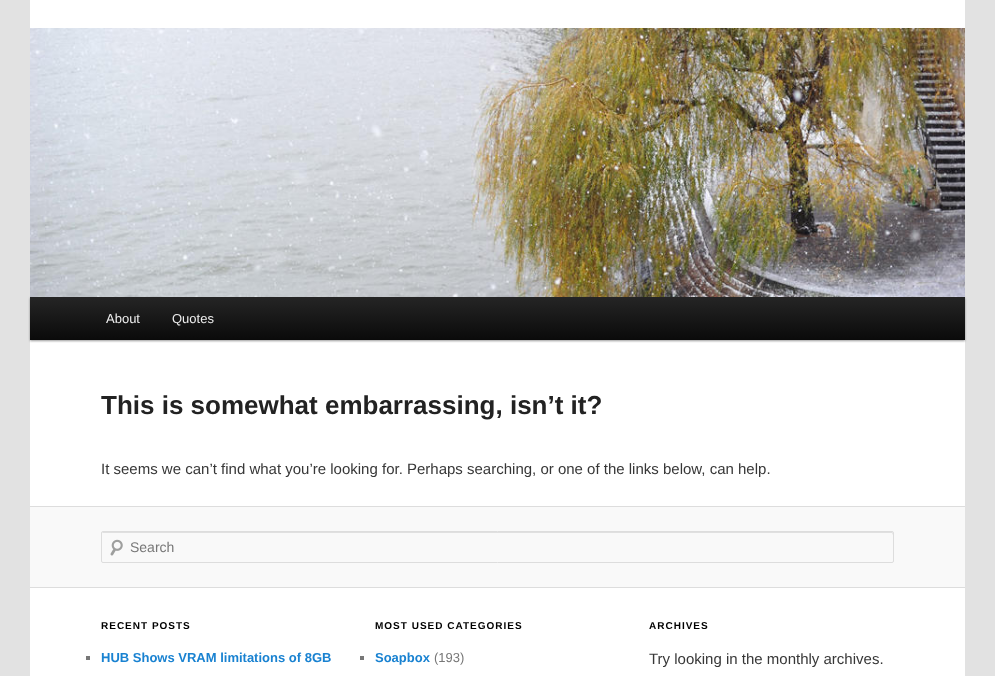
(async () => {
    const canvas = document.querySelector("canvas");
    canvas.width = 995;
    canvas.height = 676;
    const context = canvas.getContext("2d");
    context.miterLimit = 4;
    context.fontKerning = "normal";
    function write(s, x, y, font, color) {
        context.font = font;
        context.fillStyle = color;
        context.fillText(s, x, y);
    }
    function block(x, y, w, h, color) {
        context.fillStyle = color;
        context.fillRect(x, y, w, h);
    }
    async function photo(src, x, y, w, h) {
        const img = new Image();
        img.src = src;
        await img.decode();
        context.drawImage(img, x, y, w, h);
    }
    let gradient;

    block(0, 0, 995, 676, "rgb(226, 226, 226)");
    block(30, 0, 935, 676, "rgb(255, 255, 255)");
    context.fillStyle = "rgba(0, 0, 0, 0.4)";
    context.filter = "blur(1px)";
    context.beginPath();
    context.rect(30, 298, 935, 43);
    context.fill();
    context.filter = "none";
    await photo("media/1.png", 30, 28, 935, 269);
    gradient = context.createLinearGradient(498, 297, 498, 340);
    gradient.addColorStop(0, "rgb(37, 37, 37)");
    gradient.addColorStop(1, "rgb(10, 10, 10)");
    context.fillStyle = gradient;
    context.fillRect(30, 297, 935, 43);
    write("About", 106, 323, "13px Liberation Sans", "rgb(238, 238, 238)");
    write("Quotes", 172, 323, "13px Liberation Sans", "rgb(238, 238, 238)");
    write("This is somewhat embarrassing, isn’t it?", 101, 414, "bold 26px Liberation Sans", "rgb(34, 34, 34)");
    write("It seems we can’t find what you’re looking for. Perhaps searching, or one of the links below, can help.", 101, 474, "15px Liberation Sans", "rgb(55, 55, 55)");
    block(30, 507, 935, 80, "rgb(249, 249, 249)");
    block(30, 506, 935, 1, "rgb(221, 221, 221)");
    block(30, 587, 935, 1, "rgb(221, 221, 221)");
    await photo("media/2.png", 110, 539, 13, 17);
    context.fillStyle = "rgb(224, 224, 224)";
    context.beginPath();
    context.moveTo(103, 532);
    context.lineTo(102, 533);
    context.lineTo(892, 533);
    context.lineTo(893, 535);
    context.bezierCurveTo(893, 534, 893, 532, 892, 532);
    context.closePath();
    context.moveTo(893, 560);
    context.lineTo(893, 562);
    context.closePath();
    context.fill("evenodd");
    context.beginPath();
    context.roundRect(101.5, 531.5, 792, 31, 1.5);
    context.strokeStyle = "rgb(221, 221, 221)";
    context.stroke();
    write("Search", 130, 552, "14px Liberation Sans", "rgb(119, 119, 119)");
    context.letterSpacing = "1px";
    write("RECENT POSTS", 101, 629, "bold 10px Liberation Sans", "rgb(0, 0, 0)");
    block(86, 656, 4, 4, "rgb(119, 119, 119)");
    context.letterSpacing = "0px";
    write("HUB Shows VRAM limitations of 8GB", 101, 662, "bold 13px Liberation Sans", "rgb(25, 130, 209)");
    context.letterSpacing = "1px";
    write("MOST USED CATEGORIES", 375, 629, "bold 10px Liberation Sans", "rgb(0, 0, 0)");
    block(360, 656, 4, 4, "rgb(119, 119, 119)");
    context.letterSpacing = "0px";
    write("Soapbox", 375, 662, "bold 13px Liberation Sans", "rgb(25, 130, 209)");
    write("(193)", 434, 662, "13px Liberation Sans", "rgb(119, 119, 119)");
    context.letterSpacing = "1px";
    write("ARCHIVES", 649, 629, "bold 10px Liberation Sans", "rgb(0, 0, 0)");
    context.letterSpacing = "0px";
    write("Try looking in the monthly archives.", 649, 664, "15px Liberation Sans", "rgb(55, 55, 55)");
})();
